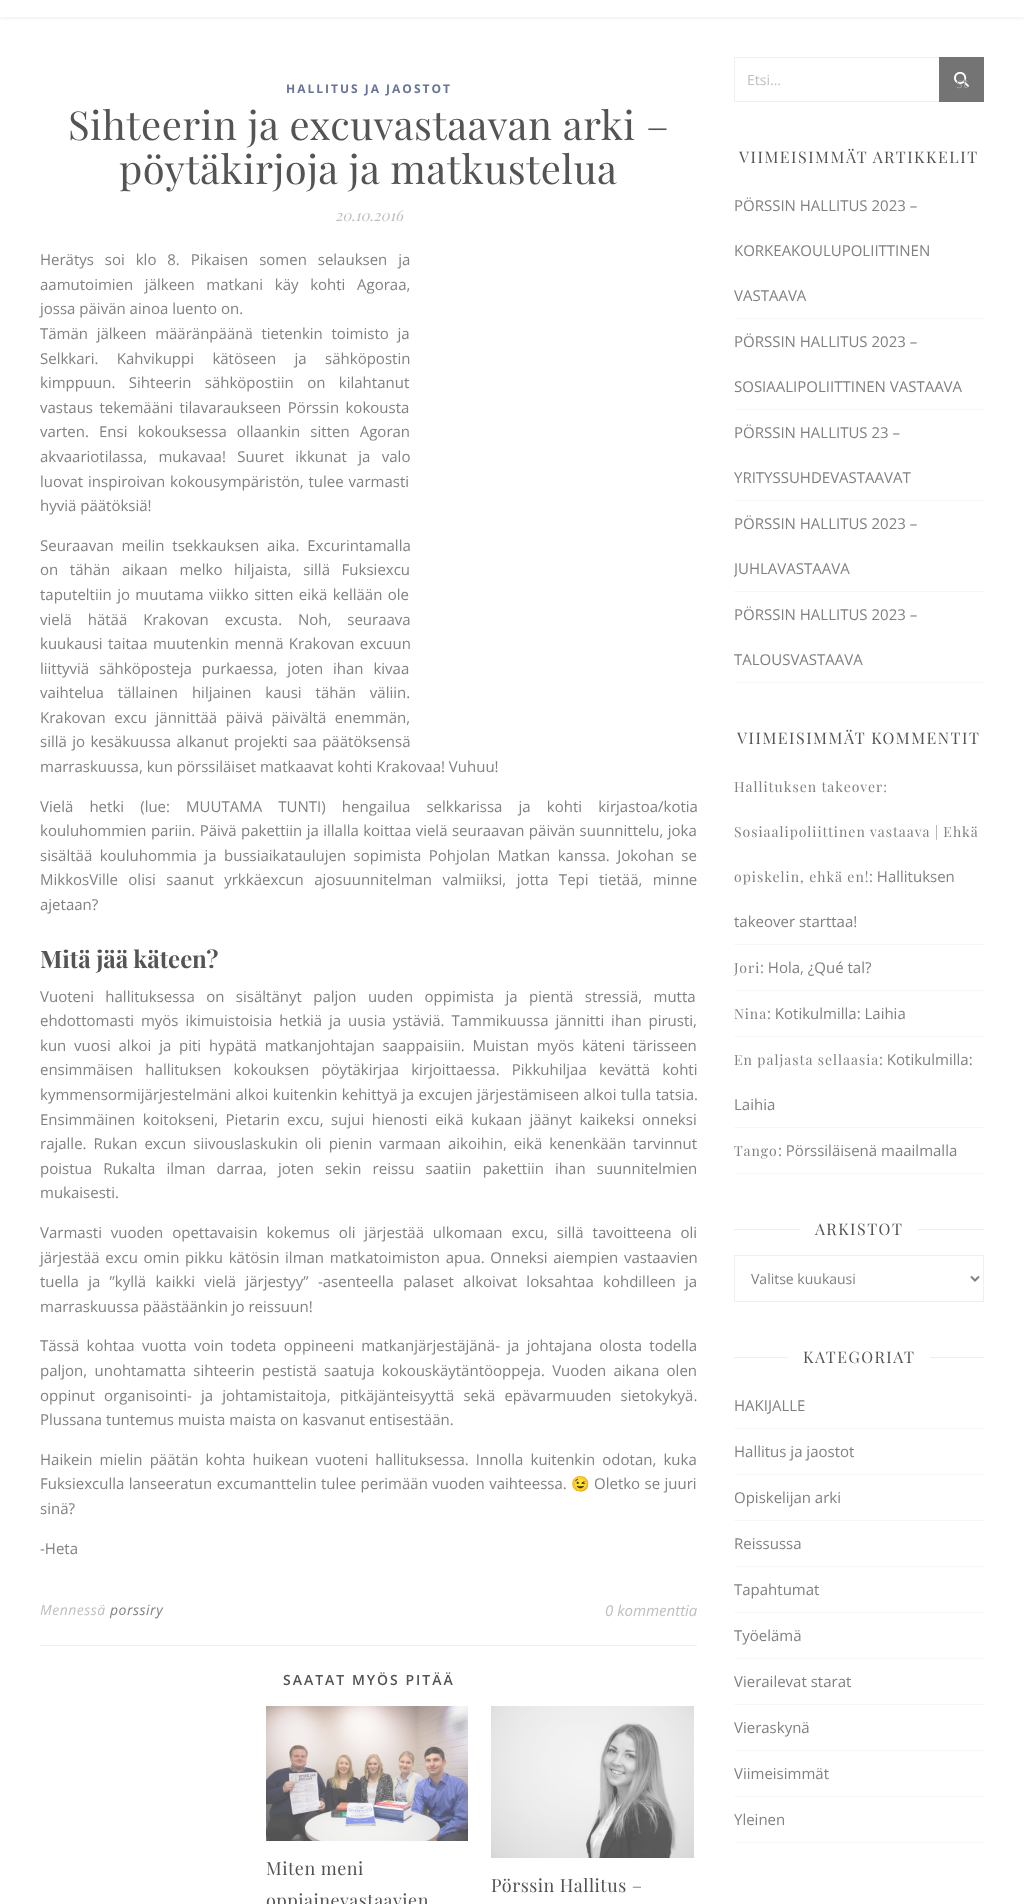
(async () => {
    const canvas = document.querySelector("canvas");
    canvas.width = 1024;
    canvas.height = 1904;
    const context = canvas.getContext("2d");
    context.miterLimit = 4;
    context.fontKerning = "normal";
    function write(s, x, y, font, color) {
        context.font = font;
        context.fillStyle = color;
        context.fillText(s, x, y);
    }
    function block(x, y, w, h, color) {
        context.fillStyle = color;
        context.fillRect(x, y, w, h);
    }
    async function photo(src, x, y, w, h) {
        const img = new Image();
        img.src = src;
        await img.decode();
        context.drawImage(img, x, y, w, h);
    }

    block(0, 0, 1024, 1904, "rgb(255, 255, 255)");
    context.save();
    context.beginPath();
    context.rect(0, 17, 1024, 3);
    context.clip();
    context.fillStyle = "rgba(82, 82, 82, 0.1)";
    context.filter = "blur(2.5px)";
    context.beginPath();
    context.rect(0, -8, 1024, 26);
    context.fill();
    context.filter = "none";
    context.restore();
    context.letterSpacing = "2px";
    write("HALLITUS JA JAOSTOT", 286, 93, "bold 12px Open Sans", "rgb(105, 116, 150)");
    context.letterSpacing = "0.5px";
    write("Sihteerin ja excuvastaavan arki –", 68, 140, "40px Playfair Display", "rgb(84, 84, 84)");
    write("pöytäkirjoja ja matkustelua", 119, 184, "40px Playfair Display", "rgb(84, 84, 84)");
    context.letterSpacing = "0px";
    write("20.10.2016", 335, 221, "italic 15px Playfair Display", "rgb(191, 191, 191)");
    context.wordSpacing = "7px";
    write("Herätys soi klo 8. Pikaisen somen selauksen ja", 40, 265, "15px Open Sans", "rgb(129, 129, 129)");
    context.wordSpacing = "7.75px";
    write("aamutoimien jälkeen matkani käy kohti Agoraa,", 40, 290, "15px Open Sans", "rgb(129, 129, 129)");
    context.wordSpacing = "0px";
    write("jossa päivän ainoa luento on.", 40, 314, "15px Open Sans", "rgb(129, 129, 129)");
    context.wordSpacing = "4.75px";
    write("Tämän jälkeen määränpäänä tietenkin toimisto ja", 40, 339, "15px Open Sans", "rgb(129, 129, 129)");
    context.wordSpacing = "14.5px";
    write("Selkkari. Kahvikuppi kätöseen ja sähköpostin", 40, 364, "15px Open Sans", "rgb(129, 129, 129)");
    context.wordSpacing = "9.5px";
    write("kimppuun. Sihteerin sähköpostiin on kilahtanut", 40, 388, "15px Open Sans", "rgb(129, 129, 129)");
    context.wordSpacing = "2.5px";
    write("vastaus tekemääni tilavaraukseen Pörssin kokousta", 40, 413, "15px Open Sans", "rgb(129, 129, 129)");
    context.wordSpacing = "6.25px";
    write("varten. Ensi kokouksessa ollaankin sitten Agoran", 40, 437, "15px Open Sans", "rgb(129, 129, 129)");
    context.wordSpacing = "7.5px";
    write("akvaariotilassa, mukavaa! Suuret ikkunat ja valo", 40, 462, "15px Open Sans", "rgb(129, 129, 129)");
    context.wordSpacing = "1px";
    write("luovat inspiroivan kokousympäristön, tulee varmasti", 40, 487, "15px Open Sans", "rgb(129, 129, 129)");
    context.wordSpacing = "0px";
    write("hyviä päätöksiä!", 40, 511, "15px Open Sans", "rgb(129, 129, 129)");
    context.wordSpacing = "4px";
    write("Seuraavan meilin tsekkauksen aika. Excurintamalla", 40, 551, "15px Open Sans", "rgb(129, 129, 129)");
    context.wordSpacing = "7.75px";
    write("on tähän aikaan melko hiljaista, sillä Fuksiexcu", 40, 575, "15px Open Sans", "rgb(129, 129, 129)");
    context.wordSpacing = "1.5px";
    write("taputeltiin jo muutama viikko sitten eikä kellään ole", 40, 600, "15px Open Sans", "rgb(129, 129, 129)");
    context.wordSpacing = "12px";
    write("vielä hätää Krakovan excusta. Noh, seuraava", 40, 625, "15px Open Sans", "rgb(129, 129, 129)");
    context.wordSpacing = "1.5px";
    write("kuukausi taitaa muutenkin mennä Krakovan excuun", 40, 649, "15px Open Sans", "rgb(129, 129, 129)");
    context.wordSpacing = "6px";
    write("liittyviä sähköposteja purkaessa, joten ihan kivaa", 40, 674, "15px Open Sans", "rgb(129, 129, 129)");
    context.wordSpacing = "10px";
    write("vaihtelua tällainen hiljainen kausi tähän väliin.", 40, 698, "15px Open Sans", "rgb(129, 129, 129)");
    context.wordSpacing = "4.75px";
    write("Krakovan excu jännittää päivä päivältä enemmän,", 40, 723, "15px Open Sans", "rgb(129, 129, 129)");
    context.wordSpacing = "1.5px";
    write("sillä jo kesäkuussa alkanut projekti saa päätöksensä", 40, 747, "15px Open Sans", "rgb(129, 129, 129)");
    context.wordSpacing = "0px";
    write("marraskuussa, kun pörssiläiset matkaavat kohti Krakovaa! Vuhuu!", 40, 772, "15px Open Sans", "rgb(129, 129, 129)");
    context.wordSpacing = "12.25px";
    write("Vielä hetki (lue: MUUTAMA TUNTI) hengailua selkkarissa ja kohti kirjastoa/kotia", 40, 812, "15px Open Sans", "rgb(129, 129, 129)");
    context.wordSpacing = "0.5px";
    write("kouluhommien pariin. Päivä pakettiin ja illalla koittaa vielä seuraavan päivän suunnittelu, joka", 40, 836, "15px Open Sans", "rgb(129, 129, 129)");
    context.wordSpacing = "3.6px";
    write("sisältää kouluhommia ja bussiaikataulujen sopimista Pohjolan Matkan kanssa. Jokohan se", 40, 861, "15px Open Sans", "rgb(129, 129, 129)");
    context.wordSpacing = "6.5px";
    write("MikkosVille olisi saanut yrkkäexcun ajosuunnitelman valmiiksi, jotta Tepi tietää, minne", 40, 885, "15px Open Sans", "rgb(129, 129, 129)");
    context.wordSpacing = "0px";
    write("ajetaan?", 40, 910, "15px Open Sans", "rgb(129, 129, 129)");
    write("Mitä jää käteen?", 40, 968, "bold 24px Playfair Display", "rgb(84, 84, 84)");
    context.wordSpacing = "7.5px";
    write("Vuoteni hallituksessa on sisältänyt paljon uuden oppimista ja pientä stressiä, mutta", 40, 1002, "15px Open Sans", "rgb(129, 129, 129)");
    context.wordSpacing = "3px";
    write("ehdottomasti myös ikimuistoisia hetkiä ja uusia ystäviä. Tammikuussa jännitti ihan pirusti,", 40, 1026, "15px Open Sans", "rgb(129, 129, 129)");
    context.wordSpacing = "3.9px";
    write("kun vuosi alkoi ja piti hypätä matkanjohtajan saappaisiin. Muistan myös käteni tärisseen", 40, 1051, "15px Open Sans", "rgb(129, 129, 129)");
    context.wordSpacing = "8.25px";
    write("ensimmäisen hallituksen kokouksen pöytäkirjaa kirjoittaessa. Pikkuhiljaa kevättä kohti", 40, 1075, "15px Open Sans", "rgb(129, 129, 129)");
    context.wordSpacing = "0.5px";
    write("kymmensormijärjestelmäni alkoi kuitenkin kehittyä ja excujen järjestämiseen alkoi tulla tatsia.", 40, 1100, "15px Open Sans", "rgb(129, 129, 129)");
    context.wordSpacing = "3.6px";
    write("Ensimmäinen koitokseni, Pietarin excu, sujui hienosti eikä kukaan jäänyt kaikeksi onneksi", 40, 1125, "15px Open Sans", "rgb(129, 129, 129)");
    context.wordSpacing = "3.1px";
    write("rajalle. Rukan excun siivouslaskukin oli pienin varmaan aikoihin, eikä kenenkään tarvinnut", 40, 1149, "15px Open Sans", "rgb(129, 129, 129)");
    context.wordSpacing = "7.25px";
    write("poistua Rukalta ilman darraa, joten sekin reissu saatiin pakettiin ihan suunnitelmien", 40, 1174, "15px Open Sans", "rgb(129, 129, 129)");
    context.wordSpacing = "0px";
    write("mukaisesti.", 40, 1198, "15px Open Sans", "rgb(129, 129, 129)");
    context.wordSpacing = "5px";
    write("Varmasti vuoden opettavaisin kokemus oli järjestää ulkomaan excu, sillä tavoitteena oli", 40, 1238, "15px Open Sans", "rgb(129, 129, 129)");
    context.wordSpacing = "1.75px";
    write("järjestää excu omin pikku kätösin ilman matkatoimiston apua. Onneksi aiempien vastaavien", 40, 1263, "15px Open Sans", "rgb(129, 129, 129)");
    context.wordSpacing = "5.4px";
    write("tuella ja ”kyllä kaikki vielä järjestyy” -asenteella palaset alkoivat loksahtaa kohdilleen ja", 40, 1287, "15px Open Sans", "rgb(129, 129, 129)");
    context.wordSpacing = "0px";
    write("marraskuussa päästäänkin jo reissuun!", 40, 1312, "15px Open Sans", "rgb(129, 129, 129)");
    context.wordSpacing = "3.4px";
    write("Tässä kohtaa vuotta voin todeta oppineeni matkanjärjestäjänä- ja johtajana olosta todella", 40, 1351, "15px Open Sans", "rgb(129, 129, 129)");
    write("paljon, unohtamatta sihteerin pestistä saatuja kokouskäytäntöoppeja. Vuoden aikana olen", 40, 1376, "15px Open Sans", "rgb(129, 129, 129)");
    context.wordSpacing = "5.25px";
    write("oppinut organisointi- ja johtamistaitoja, pitkäjänteisyyttä sekä epävarmuuden sietokykyä.", 40, 1401, "15px Open Sans", "rgb(129, 129, 129)");
    context.wordSpacing = "0px";
    write("Plussana tuntemus muista maista on kasvanut entisestään.", 40, 1425, "15px Open Sans", "rgb(129, 129, 129)");
    context.wordSpacing = "3.25px";
    write("Haikein mielin päätän kohta huikean vuoteni hallituksessa. Innolla kuitenkin odotan, kuka", 40, 1465, "15px Open Sans", "rgb(129, 129, 129)");
    context.wordSpacing = "0.5px";
    write("Fuksiexculla lanseeratun excumanttelin tulee perimään vuoden vaihteessa.", 40, 1489, "15px Open Sans", "rgb(129, 129, 129)");
    context.wordSpacing = "0px";
    write("😉", 571, 1489, "15px Noto Color Emoji", "rgb(129, 129, 129)");
    context.wordSpacing = "0.5px";
    write("Oletko se juuri", 594, 1489, "15px Open Sans", "rgb(129, 129, 129)");
    context.wordSpacing = "0px";
    write("sinä?", 40, 1514, "15px Open Sans", "rgb(129, 129, 129)");
    write("-Heta", 40, 1554, "15px Open Sans", "rgb(129, 129, 129)");
    block(40, 1645, 657, 1, "rgb(239, 239, 239)");
    context.letterSpacing = "0.5px";
    write("Mennessä", 40, 1615, "italic 14px Open Sans", "rgb(191, 191, 191)");
    write("porssiry", 110, 1615, "italic 14px Open Sans", "rgb(129, 129, 129)");
    context.letterSpacing = "0px";
    write("0 kommenttia", 605, 1616, "italic 15px Open Sans", "rgb(191, 191, 191)");
    context.letterSpacing = "2px";
    write("SAATAT MYÖS PITÄÄ", 283, 1685, "600 14px Open Sans", "rgb(84, 84, 84)");
    await photo("media/1.png", 266, 1706, 202, 135);
    context.letterSpacing = "0.5px";
    write("Miten meni", 266, 1875, "18px Playfair Display", "rgb(84, 84, 84)");
    write("oppiainevastaavien", 266, 1907, "18px Playfair Display", "rgb(84, 84, 84)");
    await photo("media/2.png", 491, 1706, 203, 152);
    write("Pörssin Hallitus –", 491, 1892, "18px Playfair Display", "rgb(84, 84, 84)");
    context.strokeStyle = "rgb(239, 239, 239)";
    context.strokeRect(734.5, 57.5, 249, 44);
    context.letterSpacing = "0px";
    write("Etsi...", 747, 85, "14px Open Sans", "rgb(191, 191, 191)");
    block(939, 57, 45, 45, "rgb(116, 116, 116)");
    await photo("media/3.png", 954, 71, 15, 16);
    write("st", 956, 88, "14px Open Sans", "rgb(157, 157, 157)");
    context.letterSpacing = "1.5px";
    write("VIIMEISIMMÄT ARTIKKELIT", 739, 163, "16px Playfair Display", "rgb(84, 84, 84)");
    context.beginPath();
    context.moveTo(734, 318.5);
    context.lineTo(984, 318.5);
    context.setLineDash([1, 1]);
    context.stroke();
    context.letterSpacing = "0px";
    write("PÖRSSIN HALLITUS 2023 –", 734, 211, "15px Open Sans", "rgb(129, 129, 129)");
    write("KORKEAKOULUPOLIITTINEN", 734, 256, "15px Open Sans", "rgb(129, 129, 129)");
    write("VASTAAVA", 734, 301, "15px Open Sans", "rgb(129, 129, 129)");
    context.beginPath();
    context.moveTo(734, 409.5);
    context.lineTo(984, 409.5);
    context.stroke();
    write("PÖRSSIN HALLITUS 2023 –", 734, 347, "15px Open Sans", "rgb(129, 129, 129)");
    write("SOSIAALIPOLIITTINEN VASTAAVA", 734, 392, "15px Open Sans", "rgb(129, 129, 129)");
    context.beginPath();
    context.moveTo(734, 500.5);
    context.lineTo(984, 500.5);
    context.stroke();
    write("PÖRSSIN HALLITUS 23 –", 734, 438, "15px Open Sans", "rgb(129, 129, 129)");
    write("YRITYSSUHDEVASTAAVAT", 734, 483, "15px Open Sans", "rgb(129, 129, 129)");
    context.beginPath();
    context.moveTo(734, 591.5);
    context.lineTo(984, 591.5);
    context.stroke();
    write("PÖRSSIN HALLITUS 2023 –", 734, 529, "15px Open Sans", "rgb(129, 129, 129)");
    context.save();
    context.beginPath();
    context.rect(734, 142, 250, 541);
    context.clip();
    write("JUHLAVASTAAVA", 734, 574, "15px Open Sans", "rgb(129, 129, 129)");
    context.restore();
    context.beginPath();
    context.moveTo(734, 682.5);
    context.lineTo(984, 682.5);
    context.stroke();
    write("PÖRSSIN HALLITUS 2023 –", 734, 620, "15px Open Sans", "rgb(129, 129, 129)");
    write("TALOUSVASTAAVA", 734, 665, "15px Open Sans", "rgb(129, 129, 129)");
    context.letterSpacing = "1.5px";
    write("VIIMEISIMMÄT KOMMENTIT", 737, 744, "16px Playfair Display", "rgb(84, 84, 84)");
    context.beginPath();
    context.moveTo(734, 944.5);
    context.lineTo(984, 944.5);
    context.stroke();
    context.letterSpacing = "1px";
    write("Hallituksen takeover:", 734, 792, "14px Playfair Display", "rgb(129, 129, 129)");
    write("Sosiaalipoliittinen vastaava | Ehkä", 734, 837, "14px Playfair Display", "rgb(129, 129, 129)");
    write("opiskelin, ehkä en!", 734, 882, "14px Playfair Display", "rgb(129, 129, 129)");
    context.letterSpacing = "0px";
    write(": Hallituksen", 869, 882, "15px Open Sans", "rgb(129, 129, 129)");
    write("takeover starttaa!", 734, 927, "15px Open Sans", "rgb(129, 129, 129)");
    context.beginPath();
    context.moveTo(734, 990.5);
    context.lineTo(984, 990.5);
    context.stroke();
    context.letterSpacing = "1px";
    write("Jori", 734, 973, "14px Playfair Display", "rgb(129, 129, 129)");
    context.letterSpacing = "0px";
    write(": Hola, ¿Qué tal?", 760, 973, "15px Open Sans", "rgb(129, 129, 129)");
    context.beginPath();
    context.moveTo(734, 1036.5);
    context.lineTo(984, 1036.5);
    context.stroke();
    context.letterSpacing = "1px";
    write("Nina", 734, 1019, "14px Playfair Display", "rgb(129, 129, 129)");
    context.letterSpacing = "0px";
    write(": Kotikulmilla: Laihia", 767, 1019, "15px Open Sans", "rgb(129, 129, 129)");
    context.beginPath();
    context.moveTo(734, 1127.5);
    context.lineTo(984, 1127.5);
    context.stroke();
    context.letterSpacing = "1px";
    write("En paljasta sellaasia", 734, 1065, "14px Playfair Display", "rgb(129, 129, 129)");
    context.letterSpacing = "0px";
    write(": Kotikulmilla:", 879, 1065, "15px Open Sans", "rgb(129, 129, 129)");
    write("Laihia", 734, 1110, "15px Open Sans", "rgb(129, 129, 129)");
    context.beginPath();
    context.moveTo(734, 1173.5);
    context.lineTo(984, 1173.5);
    context.stroke();
    context.letterSpacing = "1px";
    write("Tango", 734, 1156, "14px Playfair Display", "rgb(129, 129, 129)");
    context.letterSpacing = "0px";
    write(": Pörssiläisenä maailmalla", 778, 1156, "15px Open Sans", "rgb(129, 129, 129)");
    block(734, 1229, 66, 1, "rgb(239, 239, 239)");
    context.letterSpacing = "1.5px";
    write("ARKISTOT", 815, 1235, "16px Playfair Display", "rgb(84, 84, 84)");
    block(918, 1229, 66, 1, "rgb(239, 239, 239)");
    context.setLineDash([]);
    context.strokeRect(734.5, 1255.5, 249, 46);
    context.beginPath();
    context.moveTo(971, 1276.5);
    context.lineTo(975, 1280.5);
    context.lineTo(979, 1276.5);
    context.strokeStyle = "rgb(129, 129, 129)";
    context.lineWidth = 2;
    context.stroke();
    context.letterSpacing = "0px";
    write("Valitse kuukausi", 751, 1284, "14px Open Sans", "rgb(129, 129, 129)");
    block(734, 1357, 54, 1, "rgb(239, 239, 239)");
    context.letterSpacing = "1.5px";
    write("KATEGORIAT", 803, 1363, "16px Playfair Display", "rgb(84, 84, 84)");
    block(930, 1357, 54, 1, "rgb(239, 239, 239)");
    context.beginPath();
    context.moveTo(734, 1428.5);
    context.lineTo(984, 1428.5);
    context.strokeStyle = "rgb(239, 239, 239)";
    context.lineWidth = 1;
    context.setLineDash([1, 1]);
    context.stroke();
    context.letterSpacing = "0px";
    write("HAKIJALLE", 734, 1411, "15px Open Sans", "rgb(129, 129, 129)");
    context.beginPath();
    context.moveTo(734, 1474.5);
    context.lineTo(984, 1474.5);
    context.stroke();
    write("Hallitus ja jaostot", 734, 1457, "15px Open Sans", "rgb(129, 129, 129)");
    context.beginPath();
    context.moveTo(734, 1520.5);
    context.lineTo(984, 1520.5);
    context.stroke();
    write("Opiskelijan arki", 734, 1503, "15px Open Sans", "rgb(129, 129, 129)");
    context.beginPath();
    context.moveTo(734, 1566.5);
    context.lineTo(984, 1566.5);
    context.stroke();
    write("Reissussa", 734, 1549, "15px Open Sans", "rgb(129, 129, 129)");
    context.beginPath();
    context.moveTo(734, 1612.5);
    context.lineTo(984, 1612.5);
    context.stroke();
    write("Tapahtumat", 734, 1595, "15px Open Sans", "rgb(129, 129, 129)");
    context.beginPath();
    context.moveTo(734, 1658.5);
    context.lineTo(984, 1658.5);
    context.stroke();
    write("Työelämä", 734, 1641, "15px Open Sans", "rgb(129, 129, 129)");
    context.beginPath();
    context.moveTo(734, 1704.5);
    context.lineTo(984, 1704.5);
    context.stroke();
    write("Vierailevat starat", 734, 1687, "15px Open Sans", "rgb(129, 129, 129)");
    context.beginPath();
    context.moveTo(734, 1750.5);
    context.lineTo(984, 1750.5);
    context.stroke();
    write("Vieraskynä", 734, 1733, "15px Open Sans", "rgb(129, 129, 129)");
    context.beginPath();
    context.moveTo(734, 1796.5);
    context.lineTo(984, 1796.5);
    context.stroke();
    write("Viimeisimmät", 734, 1779, "15px Open Sans", "rgb(129, 129, 129)");
    context.beginPath();
    context.moveTo(734, 1842.5);
    context.lineTo(984, 1842.5);
    context.stroke();
    write("Yleinen", 734, 1825, "15px Open Sans", "rgb(129, 129, 129)");
})();
